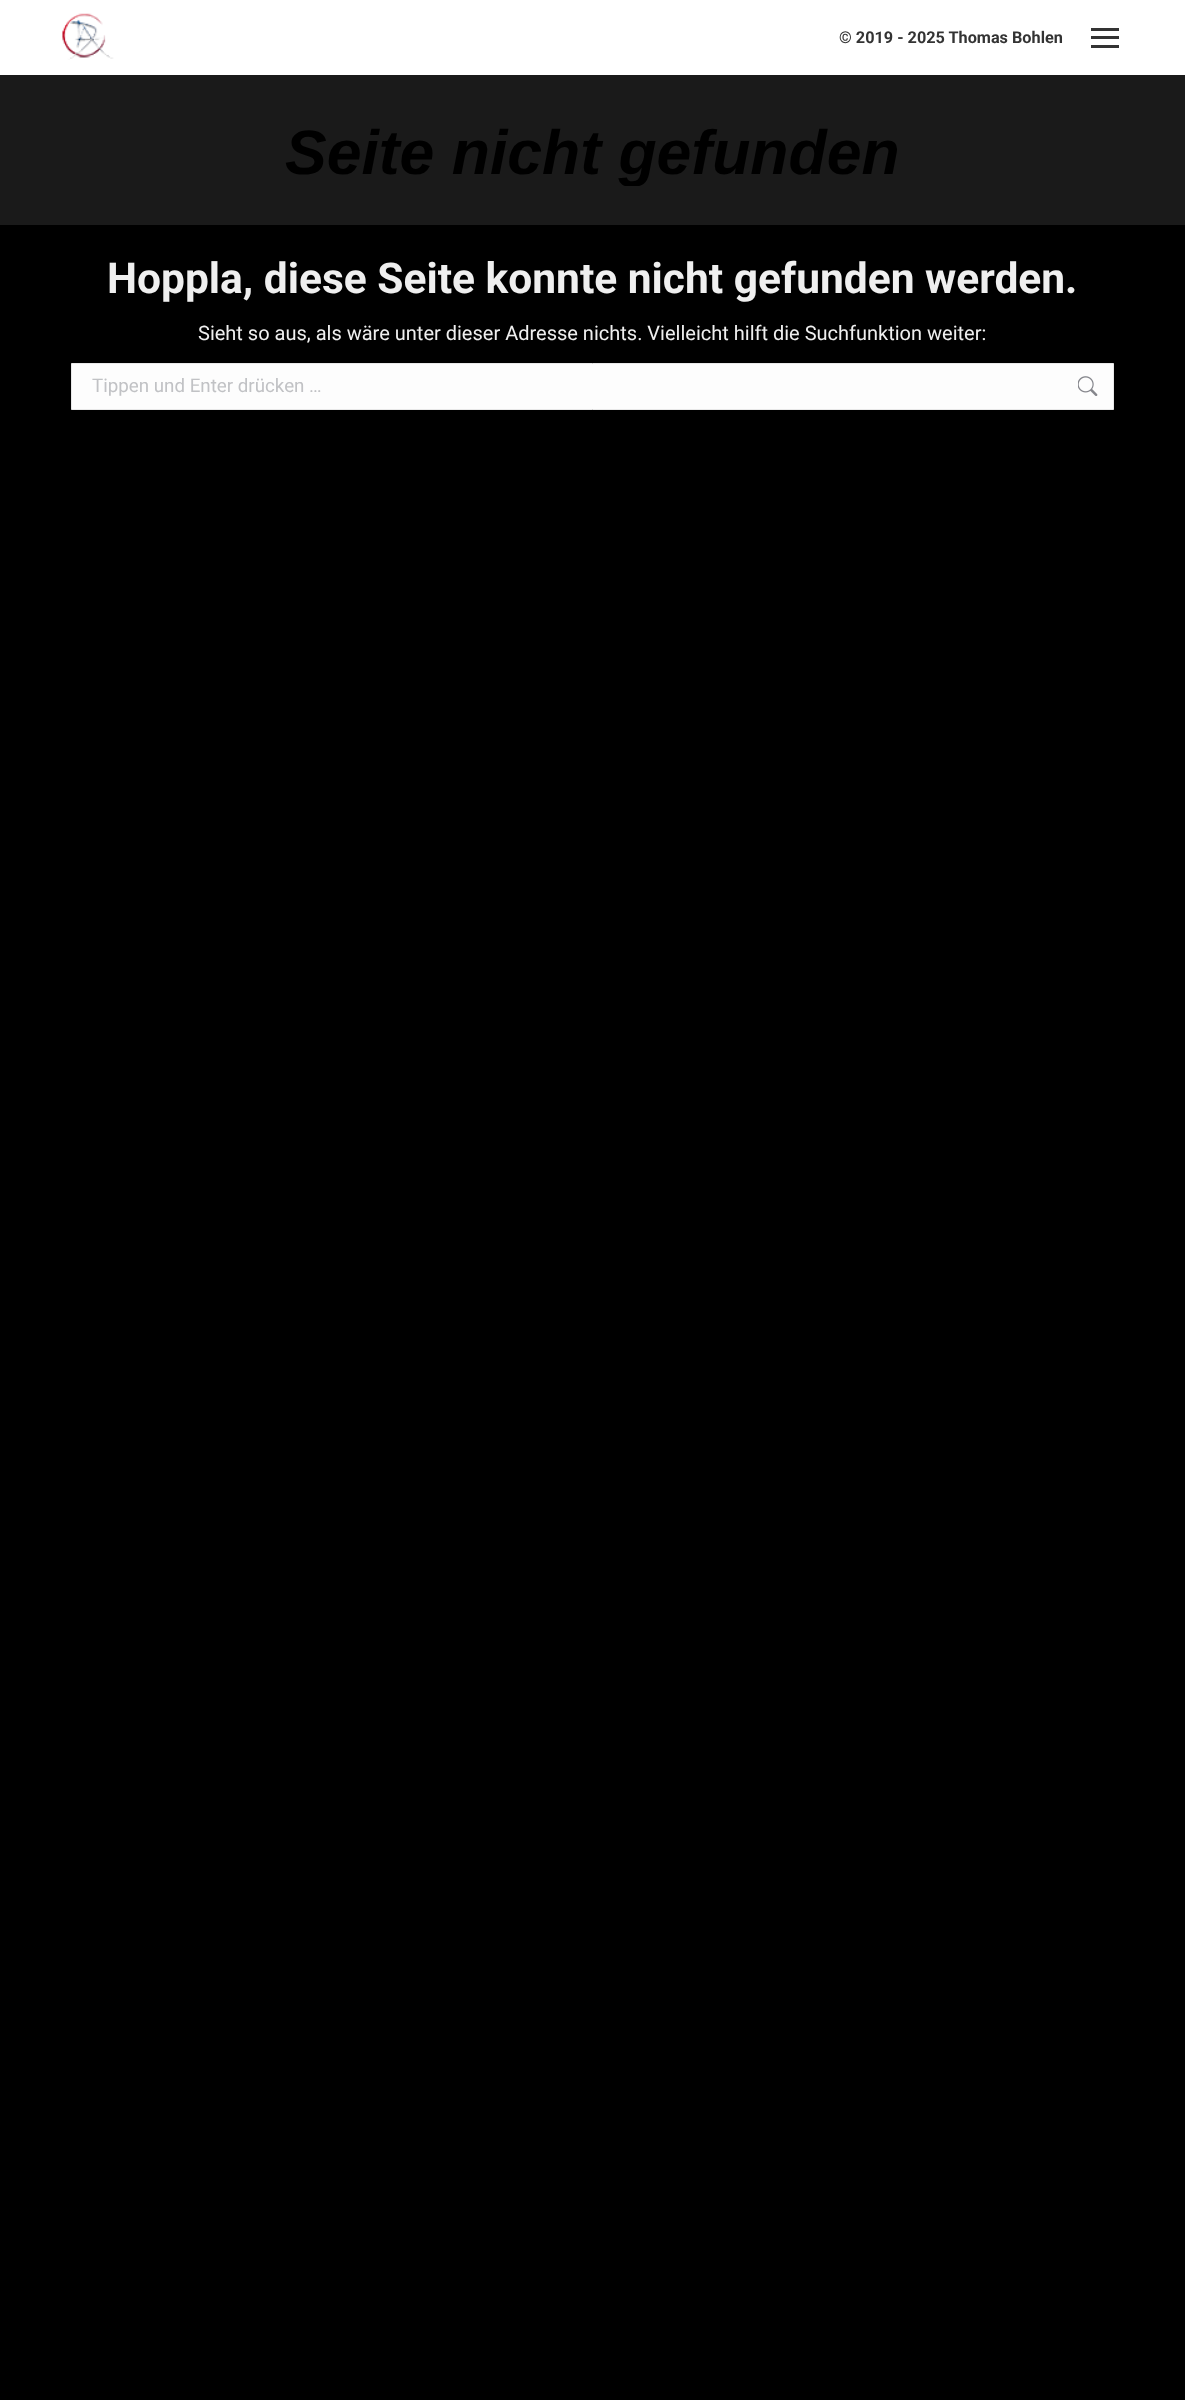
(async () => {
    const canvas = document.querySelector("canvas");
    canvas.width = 1185;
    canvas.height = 2400;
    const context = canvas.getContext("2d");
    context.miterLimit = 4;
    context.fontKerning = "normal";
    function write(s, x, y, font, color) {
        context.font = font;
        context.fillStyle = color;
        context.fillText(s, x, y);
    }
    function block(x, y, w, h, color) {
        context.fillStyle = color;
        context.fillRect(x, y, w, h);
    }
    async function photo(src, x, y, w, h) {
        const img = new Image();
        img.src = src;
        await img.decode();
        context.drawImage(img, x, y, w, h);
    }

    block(0, 0, 1185, 2400, "rgb(0, 0, 0)");
    block(0, 0, 1185, 75, "rgb(255, 255, 255)");
    await photo("media/1.png", 62, 13, 52, 47);
    write("© 2019 - 2025 Thomas Bohlen", 839, 43, "bold 16.25px Roboto", "rgb(51, 51, 51)");
    block(1091, 28, 28, 3, "rgb(51, 51, 51)");
    block(1091, 36, 28, 3, "rgb(51, 51, 51)");
    block(1091, 45, 28, 3, "rgb(51, 51, 51)");
    block(0, 75, 1185, 150, "rgb(26, 26, 26)");
    context.save();
    context.beginPath();
    context.rect(285, 121, 615, 65);
    context.clip();
    write("Seite nicht gefunden", 285, 174, "italic bold 62.5px Liberation Sans", "rgb(0, 0, 0)");
    context.restore();
    write("Hoppla, diese Seite konnte nicht gefunden werden.", 107, 293, "bold 42.5px Roboto", "rgb(239, 239, 239)");
    write("Sieht so aus, als wäre unter dieser Adresse nichts. Vielleicht hilft die Suchfunktion weiter:", 198, 340, "20px Roboto", "rgb(239, 239, 239)");
    context.fillStyle = "rgb(253, 253, 253)";
    context.beginPath();
    context.rect(71.5, 363.5, 1042, 46);
    context.fill();
    context.strokeStyle = "rgb(232, 232, 232)";
    context.stroke();
    write("Tippen und Enter drücken …", 92, 392, "18.75px Roboto", "rgb(193, 194, 197)");
    await photo("media/2.png", 1078, 376, 20, 20);
})();
